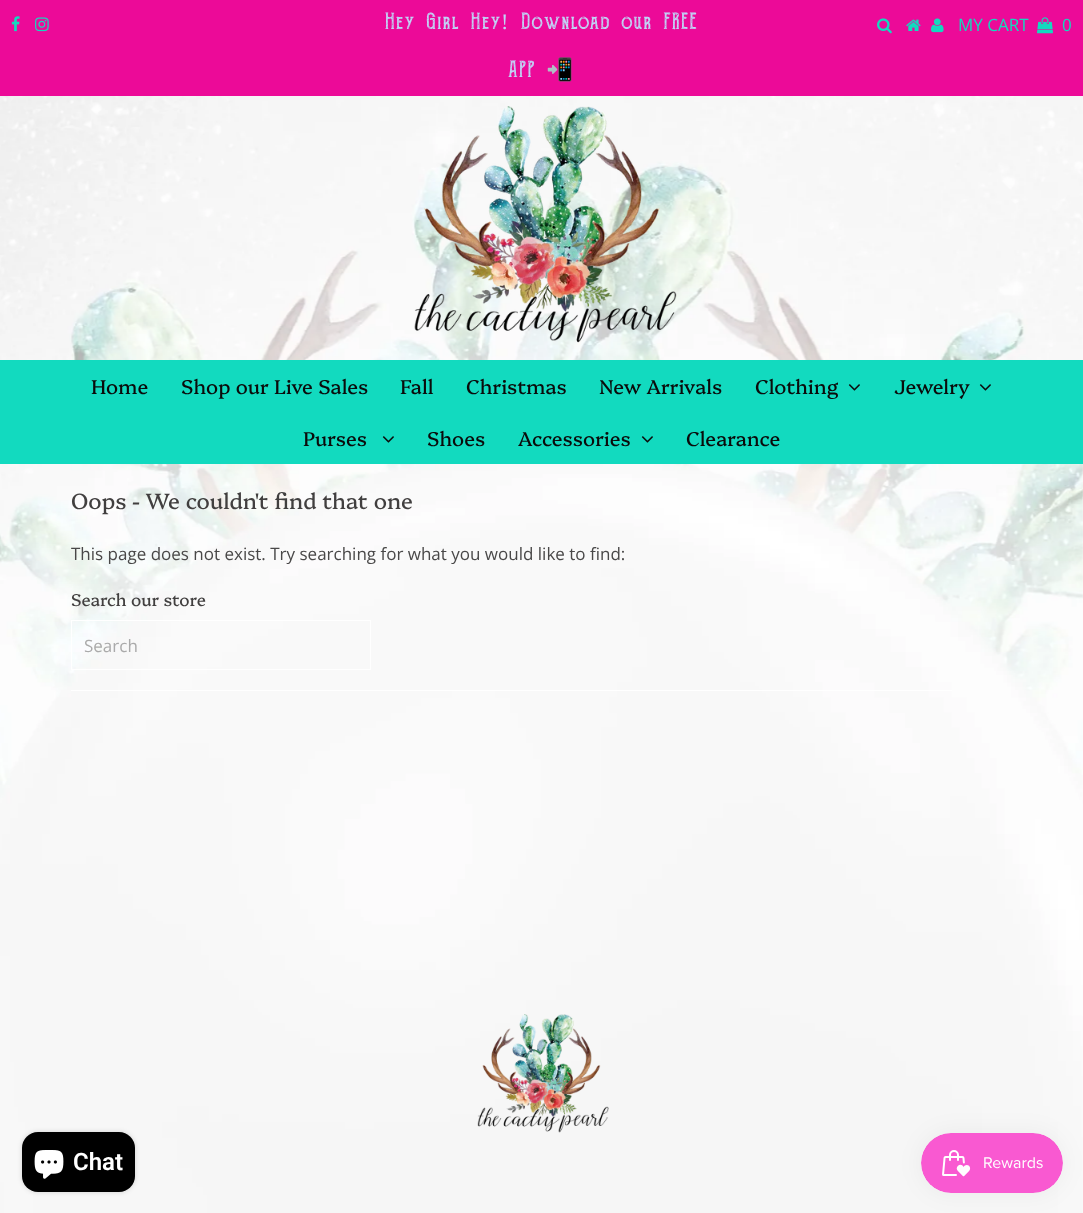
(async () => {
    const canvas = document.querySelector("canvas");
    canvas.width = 1083;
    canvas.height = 1213;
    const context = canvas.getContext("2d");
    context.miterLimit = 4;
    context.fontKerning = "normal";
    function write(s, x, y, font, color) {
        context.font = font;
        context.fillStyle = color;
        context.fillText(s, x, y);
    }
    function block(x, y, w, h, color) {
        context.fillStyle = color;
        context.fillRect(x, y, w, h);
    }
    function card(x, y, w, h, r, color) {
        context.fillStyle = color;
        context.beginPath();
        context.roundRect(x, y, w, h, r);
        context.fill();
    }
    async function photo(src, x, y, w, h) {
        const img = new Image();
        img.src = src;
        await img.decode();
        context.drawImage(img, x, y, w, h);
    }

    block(0, 0, 1083, 1213, "rgb(255, 255, 255)");
    await photo("media/1.png", 0, 96, 1083, 1117);
    block(0, 0, 1083, 96, "rgb(236, 10, 152)");
    await photo("media/2.png", 11, 16, 9, 16);
    await photo("media/3.png", 35, 17, 14, 15);
    context.letterSpacing = "1.5px";
    context.wordSpacing = "3px";
    write("Hey Girl Hey", 385, 29, "22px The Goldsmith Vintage", "rgb(193, 213, 247)");
    context.wordSpacing = "0px";
    write("!", 501, 29, "22px Liberation Serif", "rgb(193, 213, 247)");
    context.wordSpacing = "3px";
    write("Download our FREE", 521, 29, "22px The Goldsmith Vintage", "rgb(193, 213, 247)");
    context.wordSpacing = "0px";
    write("APP", 508, 77, "22px The Goldsmith Vintage", "rgb(193, 213, 247)");
    write("📲", 546, 77, "22px Noto Color Emoji", "rgb(193, 213, 247)");
    await photo("media/4.png", 877, 18, 15, 16);
    await photo("media/5.png", 906, 19, 15, 12);
    await photo("media/6.png", 931, 18, 13, 15);
    context.letterSpacing = "0px";
    write("MY CART", 958, 31, "17px Open Sans", "rgb(18, 218, 191)");
    await photo("media/7.png", 1037, 17, 16, 17);
    write("0", 1062, 31, "17px Open Sans", "rgb(18, 218, 191)");
    await photo("media/8.png", 414, 106, 263, 237);
    block(0, 360, 1083, 104, "rgb(18, 218, 191)");
    write("Home", 91, 394, "20px Platypi", "rgb(11, 11, 11)");
    write("Shop our Live Sales", 181, 394, "20px Platypi", "rgb(11, 11, 11)");
    write("Fall", 400, 394, "20px Platypi", "rgb(11, 11, 11)");
    write("Christmas", 466, 394, "20px Platypi", "rgb(11, 11, 11)");
    write("New Arrivals", 599, 394, "20px Platypi", "rgb(11, 11, 11)");
    write("Clothing", 755, 394, "20px Platypi", "rgb(11, 11, 11)");
    await photo("media/9.png", 848, 384, 12, 7);
    write("Jewelry", 894, 394, "20px Platypi", "rgb(11, 11, 11)");
    await photo("media/9.png", 979, 384, 12, 7);
    write("Purses", 303, 446, "20px Platypi", "rgb(11, 11, 11)");
    await photo("media/9.png", 382, 436, 12, 7);
    write("Shoes", 427, 446, "20px Platypi", "rgb(11, 11, 11)");
    write("Accessories", 518, 446, "20px Platypi", "rgb(11, 11, 11)");
    await photo("media/9.png", 641, 436, 12, 7);
    write("Clearance", 686, 446, "20px Platypi", "rgb(11, 11, 11)");
    write("Oops - We couldn't find that one", 71, 509, "22px Platypi", "rgb(65, 63, 63)");
    write("This page does not exist. Try searching for what you would like to find:", 71, 560, "17px Open Sans", "rgb(73, 72, 72)");
    block(71, 690, 881, 1, "rgb(255, 255, 255)");
    write("Search our store", 71, 606, "17px Platypi", "rgb(65, 63, 63)");
    context.strokeStyle = "rgb(255, 255, 255)";
    context.strokeRect(71.5, 620.5, 299, 49);
    write("Search", 84, 652, "17px Open Sans", "rgb(170, 170, 170)");
    await photo("media/10.png", 477, 1014, 132, 119);
    context.fillStyle = "rgba(0, 0, 0, 0.15)";
    context.filter = "blur(2.5px)";
    context.beginPath();
    context.roundRect(22, 1132, 113, 60, 16);
    context.fill();
    context.filter = "none";
    card(22, 1132, 113, 60, 16, "rgb(0, 0, 0)");
    await photo("media/11.png", 34, 1150, 30, 29);
    write("Chat", 73, 1170, "600 24px Roboto", "rgb(255, 255, 255)");
    context.fillStyle = "rgba(0, 0, 0, 0.05)";
    context.filter = "blur(12.5px)";
    context.beginPath();
    context.roundRect(921, 1133, 142, 60, 30);
    context.fill();
    context.filter = "none";
    await photo("media/12.png", 921, 1133, 142, 60);
})();
